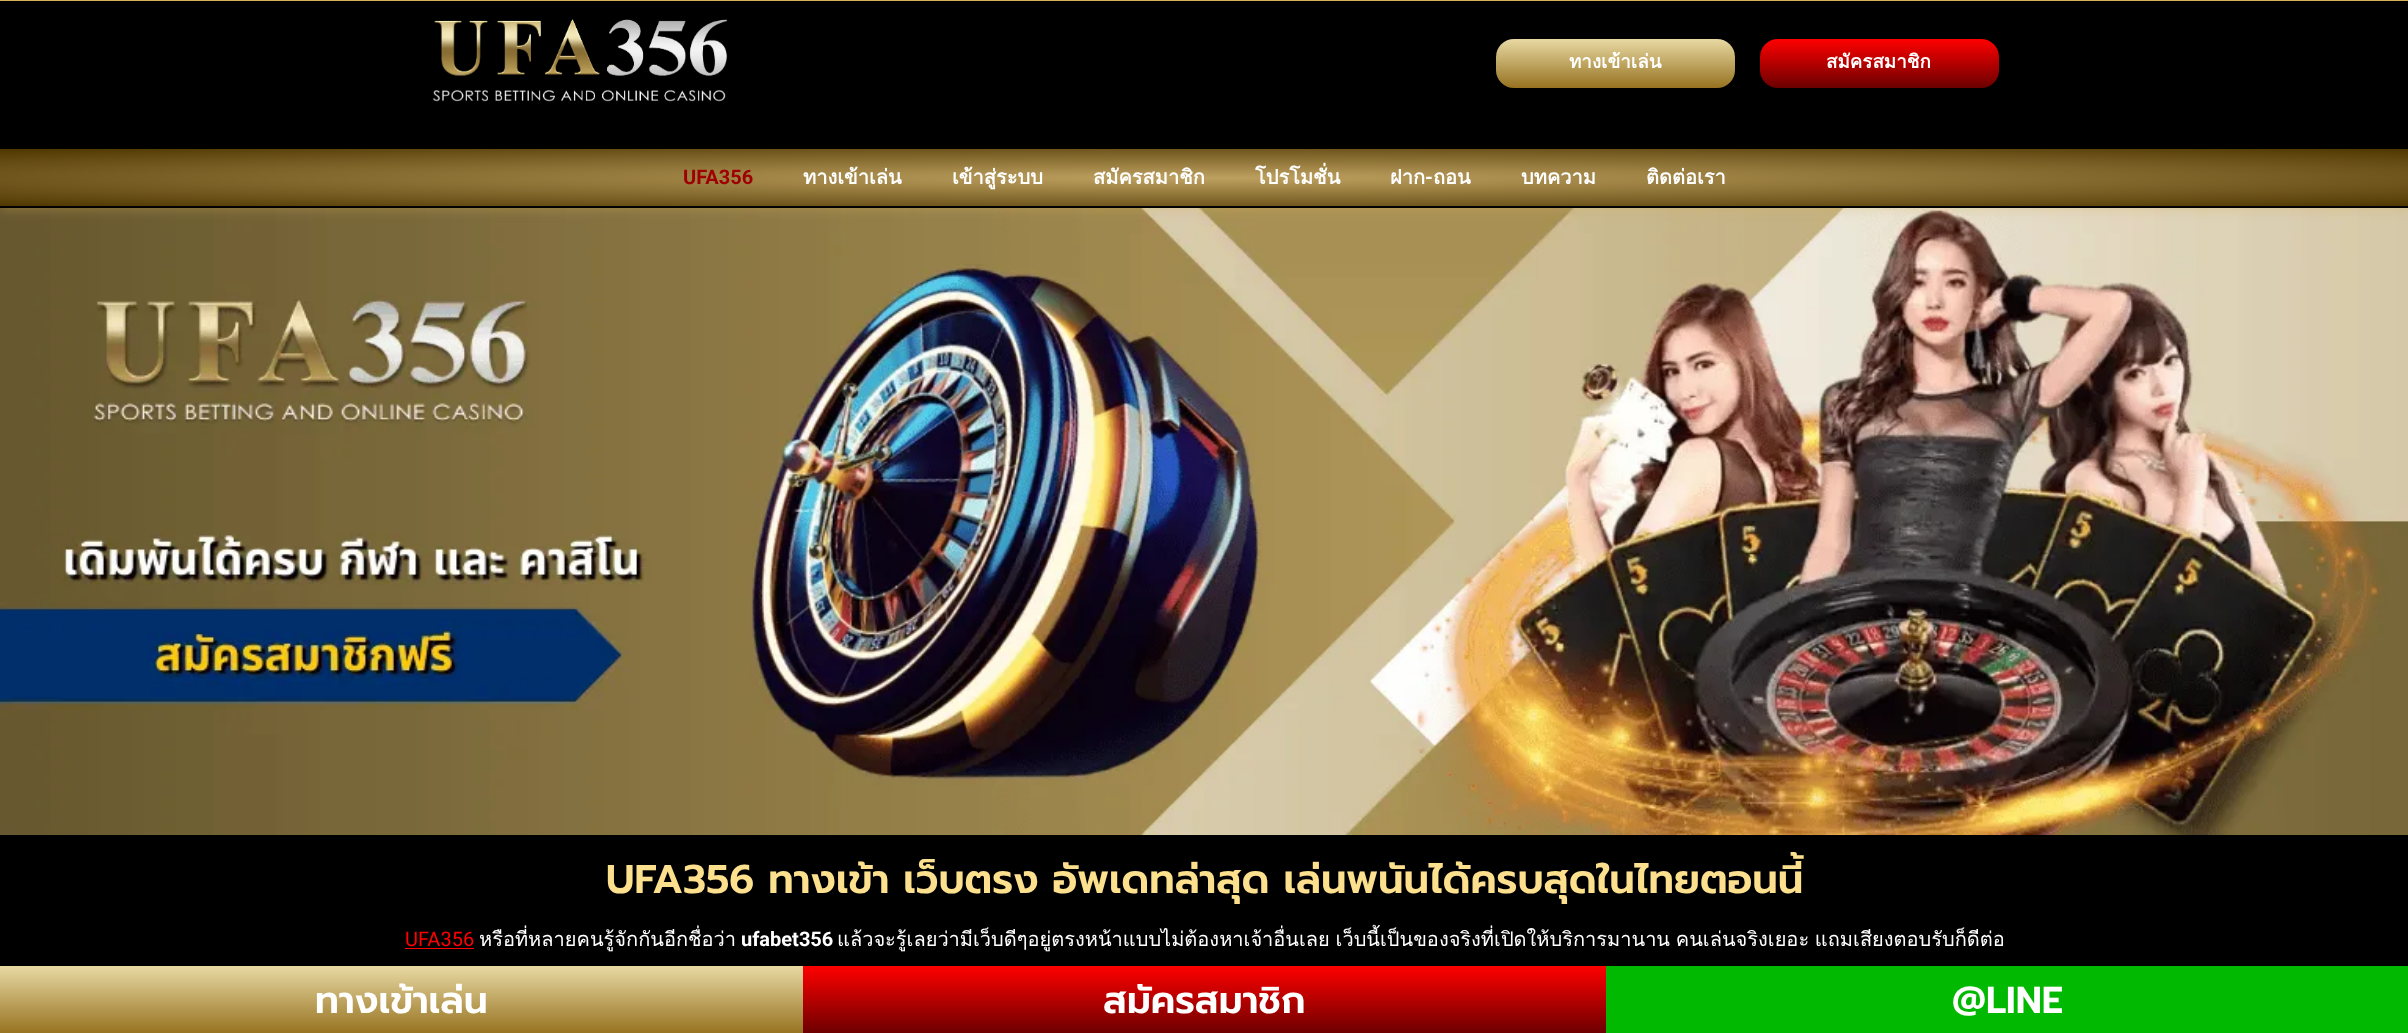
(async () => {
    const canvas = document.querySelector("canvas");
    canvas.width = 2408;
    canvas.height = 1033;
    const context = canvas.getContext("2d");
    context.miterLimit = 4;
    context.fontKerning = "normal";
    function write(s, x, y, font, color) {
        context.font = font;
        context.fillStyle = color;
        context.fillText(s, x, y);
    }
    function block(x, y, w, h, color) {
        context.fillStyle = color;
        context.fillRect(x, y, w, h);
    }
    async function photo(src, x, y, w, h) {
        const img = new Image();
        img.src = src;
        await img.decode();
        context.drawImage(img, x, y, w, h);
    }
    let gradient;

    block(0, 0, 2408, 1033, "rgb(0, 0, 0)");
    await photo("media/2.png", 0, 208, 2408, 627);
    context.fillStyle = "rgba(215, 177, 89, 0.32)";
    context.filter = "blur(6px)";
    context.beginPath();
    context.rect(0, 3, 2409, 207);
    context.fill();
    context.filter = "none";
    block(0, 1, 2408, 207, "rgb(0, 0, 0)");
    block(0, 0, 2408, 1, "rgb(215, 177, 89)");
    await photo("media/1.png", 432, 19, 296, 83);
    gradient = context.createLinearGradient(1616, 39, 1616, 88);
    gradient.addColorStop(0, "rgb(232, 217, 163)");
    gradient.addColorStop(1, "rgb(150, 114, 32)");
    context.fillStyle = gradient;
    context.beginPath();
    context.roundRect(1496, 39, 239, 49, 18);
    context.fill();
    write("ทางเข้าเล่น", 1569, 68, "bold 18.75px Loma", "rgb(255, 255, 255)");
    gradient = context.createLinearGradient(1879, 39, 1879, 88);
    gradient.addColorStop(0, "rgb(255, 0, 0)");
    gradient.addColorStop(1, "rgb(107, 0, 0)");
    context.fillStyle = gradient;
    context.beginPath();
    context.roundRect(1760, 39, 239, 49, 18);
    context.fill();
    write("สมัครสมาชิก", 1826, 68, "bold 18.75px Loma", "rgb(255, 255, 255)");
    gradient = context.createRadialGradient(1204, 7393.51, 0, 1204, 7393.51, 1703);
    gradient.addColorStop(0, "rgb(190, 161, 96)");
    gradient.addColorStop(1, "rgb(78, 54, 0)");
    context.fillStyle = gradient;
    context.beginPath();
    context.rect(0, 149, 2408, 57);
    context.save();
    context.clip();
    context.scale(1, 41 / 1703);
    context.fillRect(0, 0, 2408, 42908);
    context.restore();
    write("UFA356", 683, 184, "bold 20px Roboto", "rgb(158, 0, 0)");
    write("ทางเข้าเล่น", 803, 184, "bold 20px Loma", "rgb(255, 255, 255)");
    write("เข้าสู่ระบบ", 952, 184, "bold 20px Loma", "rgb(255, 255, 255)");
    write("สมัครสมาชิก", 1093, 184, "bold 20px Loma", "rgb(255, 255, 255)");
    write("โปรโมชั่น", 1255, 184, "bold 20px Loma", "rgb(255, 255, 255)");
    write("ฝาก", 1390, 184, "bold 20px Loma", "rgb(255, 255, 255)");
    write("-", 1425, 184, "bold 20px Roboto", "rgb(255, 255, 255)");
    write("ถอน", 1433, 184, "bold 20px Loma", "rgb(255, 255, 255)");
    write("บทความ", 1521, 184, "bold 20px Loma", "rgb(255, 255, 255)");
    write("ติดต่อเรา", 1646, 184, "bold 20px Loma", "rgb(255, 255, 255)");
    write("UFA356 ทางเข้า เว็บตรง อัพเดทล่าสุด เล่นพนันได้ครบสุดในไทยตอนนี้", 606, 893, "600 40px Prompt", "rgb(253, 224, 141)");
    write("UFA356", 405, 946, "20px Roboto", "rgb(255, 0, 0)");
    block(405, 948, 69, 1, "rgb(255, 0, 0)");
    write("หรือที่หลายคนรู้จักกันอีกชื่อว่า", 479, 946, "20px Loma", "rgb(255, 255, 255)");
    write("ufabet356", 741, 946, "bold 20px Roboto", "rgb(255, 255, 255)");
    context.wordSpacing = "-1px";
    write("แล้วจะรู้เลยว่ามีเว็บดีๆอยู่ตรงหน้าแบบไม่ต้องหาเจ้าอื่นเลย เว็บนี้เป็นของจริงที่เปิดให้บริการมานาน คนเล่นจริงเยอะ แถมเสียงตอบรับก็ดีต่อ", 837, 946, "20px Loma", "rgb(255, 255, 255)");
    gradient = context.createLinearGradient(401, 966, 401, 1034);
    gradient.addColorStop(0, "rgb(232, 217, 163)");
    gradient.addColorStop(1, "rgb(150, 114, 32)");
    context.fillStyle = gradient;
    context.fillRect(0, 966, 803, 67);
    context.wordSpacing = "0px";
    write("ทางเข้าเล่น", 315, 1013, "600 37.5px Prompt", "rgb(255, 255, 255)");
    gradient = context.createLinearGradient(1204, 966, 1204, 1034);
    gradient.addColorStop(0, "rgb(255, 0, 0)");
    gradient.addColorStop(1, "rgb(107, 0, 0)");
    context.fillStyle = gradient;
    context.fillRect(803, 966, 803, 67);
    write("สมัครสมาชิก", 1103, 1013, "600 37.5px Prompt", "rgb(255, 255, 255)");
    block(1606, 966, 802, 67, "rgb(0, 185, 0)");
    write("@LINE", 1952, 1013, "600 37.5px Prompt", "rgb(255, 255, 255)");
})();
